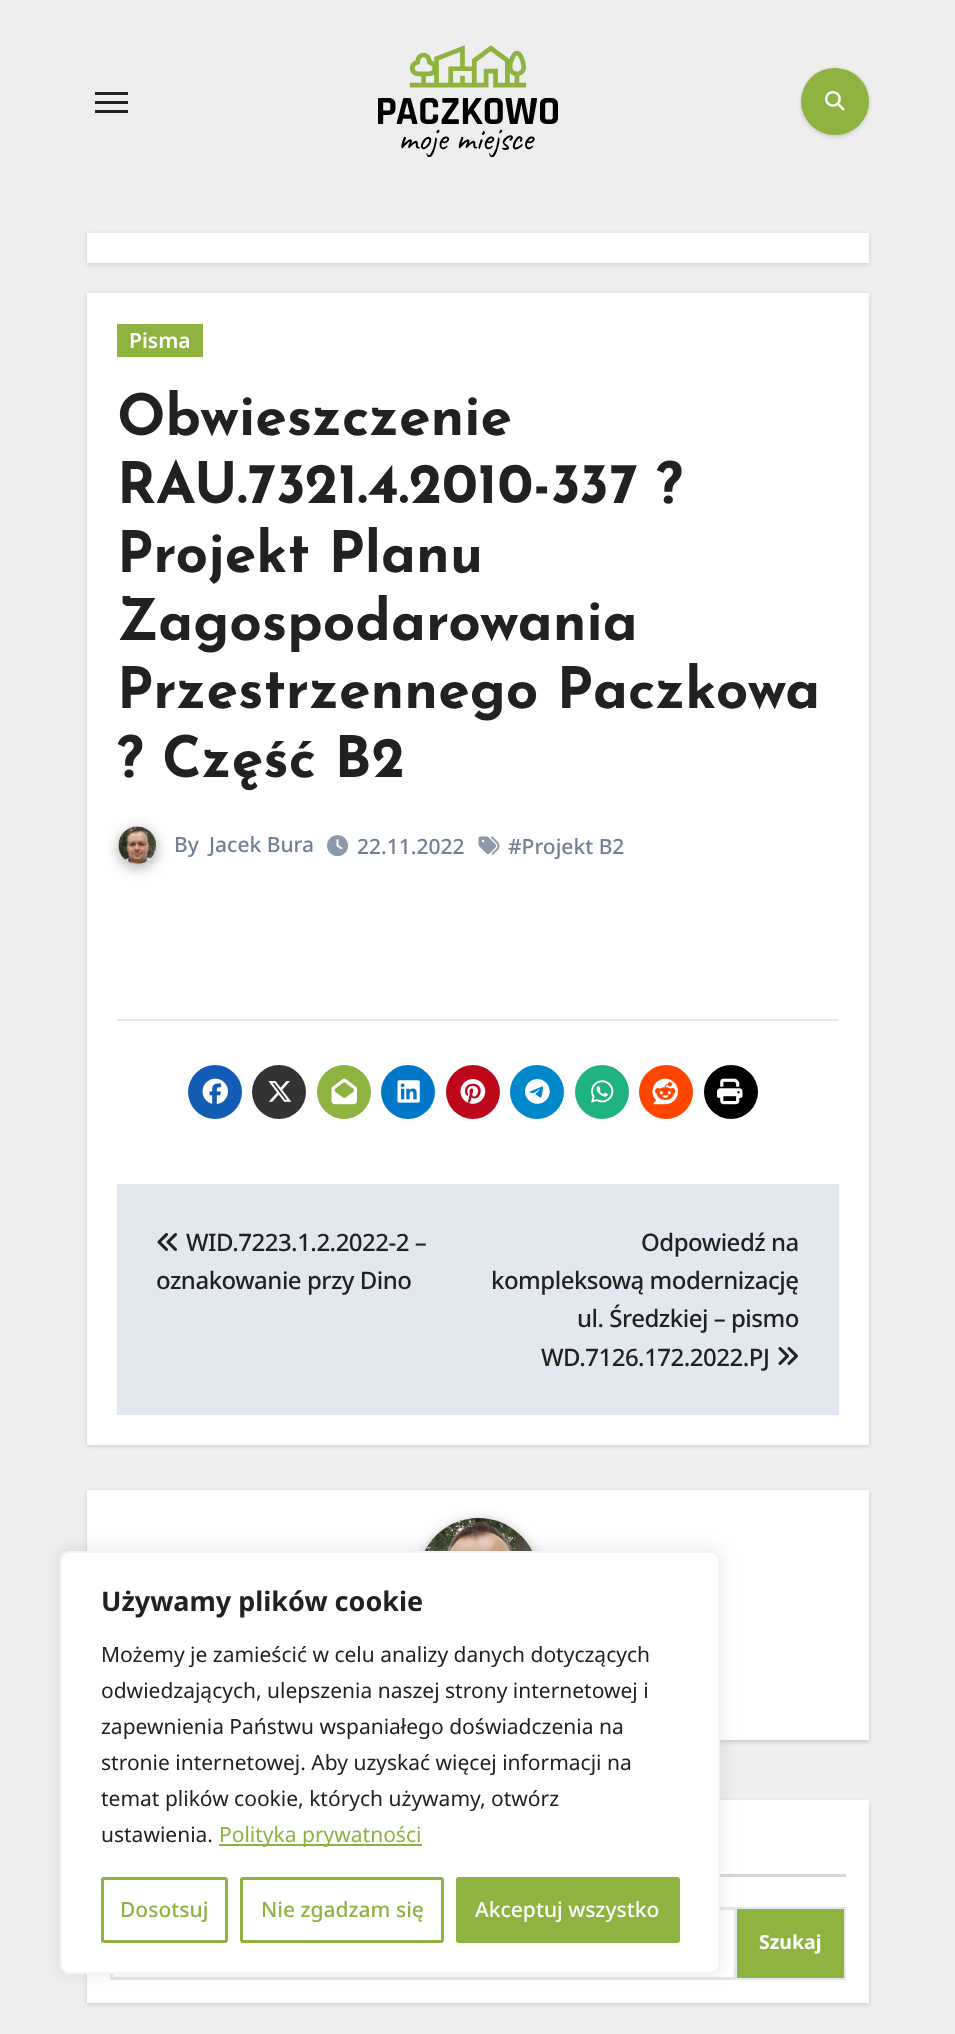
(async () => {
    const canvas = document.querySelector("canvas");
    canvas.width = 955;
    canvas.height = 2034;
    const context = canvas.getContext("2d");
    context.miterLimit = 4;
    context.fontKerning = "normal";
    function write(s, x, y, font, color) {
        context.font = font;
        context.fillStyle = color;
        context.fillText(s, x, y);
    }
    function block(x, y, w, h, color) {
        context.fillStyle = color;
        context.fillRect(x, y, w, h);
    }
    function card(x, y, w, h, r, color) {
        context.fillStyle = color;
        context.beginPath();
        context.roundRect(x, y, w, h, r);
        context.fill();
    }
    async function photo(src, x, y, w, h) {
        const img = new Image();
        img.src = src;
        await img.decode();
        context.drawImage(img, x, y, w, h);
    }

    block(0, 0, 955, 2034, "rgb(238, 238, 238)");
    block(95, 92, 33, 3, "rgb(33, 33, 33)");
    block(95, 101, 33, 3, "rgb(33, 33, 33)");
    block(95, 110, 33, 3, "rgb(33, 33, 33)");
    await photo("media/1.png", 378, 45, 180, 112);
    context.fillStyle = "rgba(0, 0, 0, 0.15)";
    context.filter = "blur(2px)";
    context.beginPath();
    context.roundRect(801, 69, 68, 68, 34);
    context.fill();
    context.filter = "none";
    card(801, 68, 68, 67, 33.5, "rgb(142, 179, 64)");
    await photo("media/2.png", 825, 90, 20, 21);
    context.fillStyle = "rgba(0, 0, 0, 0.15)";
    context.filter = "blur(2px)";
    context.beginPath();
    context.rect(87, 234, 782, 30);
    context.fill();
    context.filter = "none";
    block(87, 233, 782, 30, "rgb(255, 255, 255)");
    context.fillStyle = "rgba(0, 0, 0, 0.15)";
    context.filter = "blur(2px)";
    context.beginPath();
    context.rect(87, 294, 782, 1152);
    context.fill();
    context.filter = "none";
    block(87, 293, 782, 1152, "rgb(255, 255, 255)");
    block(117, 324, 86, 33, "rgb(142, 179, 64)");
    write("Pisma", 129, 348, "600 21px Noto Sans", "rgb(255, 255, 255)");
    write("Obwieszczenie", 117, 435, "bold 57px Josefin Sans", "rgb(33, 33, 33)");
    write("RAU.7321.4.2010-337 ?", 117, 503, "bold 57px Josefin Sans", "rgb(33, 33, 33)");
    write("Projekt Planu", 117, 572, "bold 57px Josefin Sans", "rgb(33, 33, 33)");
    write("Zagospodarowania", 117, 640, "bold 57px Josefin Sans", "rgb(33, 33, 33)");
    write("Przestrzennego Paczkowa", 117, 708, "bold 57px Josefin Sans", "rgb(33, 33, 33)");
    write("? Część B2", 117, 777, "bold 57px Josefin Sans", "rgb(33, 33, 33)");
    context.fillStyle = "rgba(33, 33, 33, 0.3)";
    context.filter = "blur(6px)";
    context.beginPath();
    context.roundRect(117, 828, 41, 41, 20.5);
    context.fill();
    context.filter = "none";
    await photo("media/3.png", 118, 826, 38, 38);
    write("By", 174, 852, "500 21px Noto Sans", "rgb(113, 128, 150)");
    write("Jacek Bura", 209, 852, "500 21px Noto Sans", "rgb(113, 128, 150)");
    await photo("media/4.png", 327, 835, 21, 22);
    write("22.11.2022", 357, 854, "500 21px Noto Sans", "rgb(113, 128, 150)");
    await photo("media/5.png", 478, 836, 22, 19);
    write("#Projekt B2", 508, 854, "500 21px Noto Sans", "rgb(113, 128, 150)");
    block(117, 1019, 722, 2, "rgb(226, 232, 240)");
    context.fillStyle = "rgb(19, 92, 182)";
    context.beginPath();
    context.arc(215, 1092, 27, 0, Math.PI * 2);
    context.fill();
    await photo("media/6.png", 202, 1078, 26, 26);
    context.fillStyle = "rgb(51, 51, 51)";
    context.beginPath();
    context.arc(279, 1092, 27, 0, Math.PI * 2);
    context.fill();
    await photo("media/7.png", 268, 1081, 24, 21);
    context.fillStyle = "rgb(142, 179, 64)";
    context.beginPath();
    context.arc(344, 1092, 27, 0, Math.PI * 2);
    context.fill();
    await photo("media/8.png", 331, 1078, 26, 27);
    context.fillStyle = "rgb(0, 120, 202)";
    context.beginPath();
    context.arc(408, 1092, 27, 0, Math.PI * 2);
    context.fill();
    await photo("media/9.png", 397, 1080, 23, 23);
    context.fillStyle = "rgb(189, 8, 28)";
    context.beginPath();
    context.arc(473, 1092, 27, 0, Math.PI * 2);
    context.fill();
    await photo("media/10.png", 460, 1079, 26, 25);
    context.fillStyle = "rgb(0, 136, 204)";
    context.beginPath();
    context.arc(537, 1092, 27, 0, Math.PI * 2);
    context.fill();
    await photo("media/11.png", 525, 1079, 25, 25);
    context.fillStyle = "rgb(31, 179, 129)";
    context.beginPath();
    context.arc(602, 1092, 27, 0, Math.PI * 2);
    context.fill();
    await photo("media/12.png", 591, 1080, 23, 23);
    context.fillStyle = "rgb(255, 69, 0)";
    context.beginPath();
    context.arc(666, 1092, 27, 0, Math.PI * 2);
    context.fill();
    await photo("media/13.png", 652, 1078, 26, 27);
    context.fillStyle = "rgb(0, 0, 0)";
    context.beginPath();
    context.arc(731, 1092, 27, 0, Math.PI * 2);
    context.fill();
    await photo("media/14.png", 717, 1078, 26, 27);
    block(117, 1184, 722, 231, "rgb(226, 232, 240)");
    await photo("media/15.png", 157, 1233, 20, 18);
    context.letterSpacing = "-0.5px";
    write("WID.7223.1.2.2022-2 –", 186, 1251, "500 24px Noto Sans", "rgb(33, 33, 33)");
    write("oznakowanie przy Dino", 156, 1289, "500 24px Noto Sans", "rgb(33, 33, 33)");
    write("Odpowiedź na", 641, 1251, "500 24px Noto Sans", "rgb(33, 33, 33)");
    write("kompleksową modernizację", 491, 1289, "500 24px Noto Sans", "rgb(33, 33, 33)");
    write("ul. Średzkiej – pismo", 577, 1327, "500 24px Noto Sans", "rgb(33, 33, 33)");
    write("WD.7126.172.2022.PJ", 541, 1366, "500 24px Noto Sans", "rgb(33, 33, 33)");
    await photo("media/16.png", 778, 1347, 20, 18);
    context.fillStyle = "rgba(0, 0, 0, 0.15)";
    context.filter = "blur(2px)";
    context.beginPath();
    context.rect(87, 1491, 782, 251);
    context.fill();
    context.filter = "none";
    block(87, 1490, 782, 250, "rgb(255, 255, 255)");
    context.fillStyle = "rgba(33, 33, 33, 0.3)";
    context.filter = "blur(6px)";
    context.beginPath();
    context.roundRect(417, 1520, 123, 123, 61.5);
    context.fill();
    context.filter = "none";
    await photo("media/17.png", 425, 1518, 107, 33);
    context.fillStyle = "rgba(0, 0, 0, 0.15)";
    context.filter = "blur(2px)";
    context.beginPath();
    context.rect(87, 1802, 782, 202);
    context.fill();
    context.filter = "none";
    block(87, 1800, 782, 203, "rgb(255, 255, 255)");
    block(720, 1874, 126, 3, "rgb(215, 215, 215)");
    context.strokeStyle = "rgb(229, 229, 229)";
    context.lineWidth = 3;
    context.strokeRect(111.5, 1908.5, 624, 70);
    context.fillStyle = "rgb(142, 179, 64)";
    context.beginPath();
    context.rect(736, 1908, 109, 71);
    context.fill();
    context.strokeStyle = "rgb(226, 232, 240)";
    context.lineWidth = 2;
    context.stroke();
    context.letterSpacing = "0px";
    write("Szukaj", 759, 1949, "bold 19.5px Noto Sans", "rgb(255, 255, 255)");
    context.fillStyle = "rgba(172, 171, 171, 0.3)";
    context.filter = "blur(7.5px)";
    context.beginPath();
    context.roundRect(60, 1550, 660, 423, 9);
    context.fill();
    context.filter = "none";
    context.fillStyle = "rgb(255, 255, 255)";
    context.beginPath();
    context.roundRect(61, 1552, 658, 421, 8);
    context.fill();
    context.strokeStyle = "rgb(244, 244, 244)";
    context.stroke();
    write("Używamy plików cookie", 101, 1611, "bold 27px Noto Sans", "rgb(33, 33, 33)");
    write("Możemy je zamieścić w celu analizy danych dotyczących", 101, 1662, "21px Noto Sans", "rgb(33, 33, 33)");
    write("odwiedzających, ulepszenia naszej strony internetowej i", 101, 1698, "21px Noto Sans", "rgb(33, 33, 33)");
    write("zapewnienia Państwu wspaniałego doświadczenia na", 101, 1734, "21px Noto Sans", "rgb(33, 33, 33)");
    write("stronie internetowej. Aby uzyskać więcej informacji na", 101, 1770, "21px Noto Sans", "rgb(33, 33, 33)");
    write("temat plików cookie, których używamy, otwórz", 101, 1806, "21px Noto Sans", "rgb(33, 33, 33)");
    write("ustawienia.", 101, 1842, "21px Noto Sans", "rgb(33, 33, 33)");
    block(219, 1844, 203, 2, "rgb(142, 179, 64)");
    write("Polityka prywatności", 219, 1842, "21px Noto Sans", "rgb(142, 179, 64)");
    context.beginPath();
    context.roundRect(102.5, 1878.5, 124, 63, 1.5);
    context.strokeStyle = "rgb(142, 179, 64)";
    context.lineWidth = 3;
    context.stroke();
    write("Dosotsuj", 120, 1917, "500 21px Noto Sans", "rgb(142, 179, 64)");
    context.beginPath();
    context.roundRect(241.5, 1878.5, 201, 63, 1.5);
    context.stroke();
    write("Nie zgadzam się", 261, 1917, "500 21px Noto Sans", "rgb(142, 179, 64)");
    context.beginPath();
    context.roundRect(457.5, 1878.5, 221, 63, 1.5);
    context.fill();
    context.stroke();
    write("Akceptuj wszystko", 475, 1917, "500 21px Noto Sans", "rgb(255, 255, 255)");
})();
